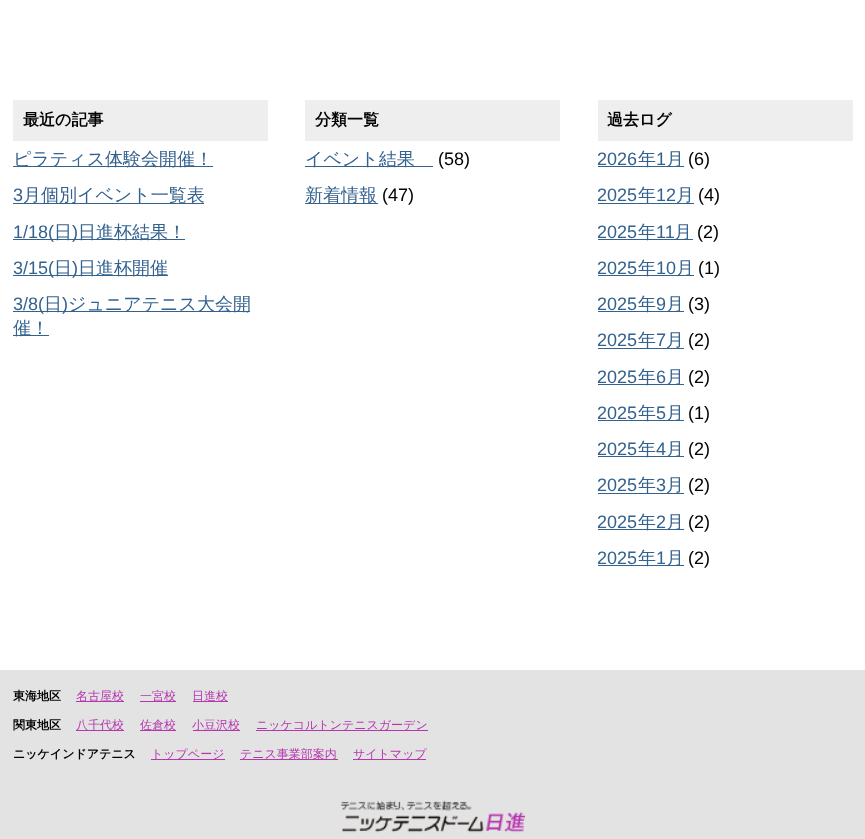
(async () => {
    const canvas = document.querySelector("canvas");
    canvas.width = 865;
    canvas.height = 839;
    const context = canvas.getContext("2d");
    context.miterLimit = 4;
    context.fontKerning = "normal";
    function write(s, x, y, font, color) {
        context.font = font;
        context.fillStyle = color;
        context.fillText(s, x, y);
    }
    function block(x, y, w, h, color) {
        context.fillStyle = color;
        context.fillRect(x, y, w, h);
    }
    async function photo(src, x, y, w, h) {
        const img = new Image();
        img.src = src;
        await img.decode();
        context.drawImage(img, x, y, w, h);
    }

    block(0, 0, 865, 839, "rgb(255, 255, 255)");
    block(13, 100, 255, 41, "rgb(238, 238, 238)");
    write("最近の記事", 23, 125, "bold 16px WenQuanYi Zen Hei", "rgb(0, 0, 0)");
    block(13, 166, 200, 1, "rgb(52, 98, 143)");
    write("ピラティス体験会開催！", 13, 165, "500 18px WenQuanYi Zen Hei", "rgb(52, 98, 143)");
    write("3", 13, 201, "18px Liberation Sans", "rgb(52, 98, 143)");
    block(13, 203, 191, 1, "rgb(52, 98, 143)");
    write("月個別イベント一覧表", 23, 201, "500 18px WenQuanYi Zen Hei", "rgb(52, 98, 143)");
    block(13, 239, 172, 1, "rgb(52, 98, 143)");
    write("1/18(", 13, 238, "18px Liberation Sans", "rgb(52, 98, 143)");
    write("日", 54, 238, "500 18px WenQuanYi Zen Hei", "rgb(52, 98, 143)");
    write(")", 72, 238, "18px Liberation Sans", "rgb(52, 98, 143)");
    write("日進杯結果！", 78, 238, "500 18px WenQuanYi Zen Hei", "rgb(52, 98, 143)");
    block(13, 275, 155, 1, "rgb(52, 98, 143)");
    write("3/15(", 13, 274, "18px Liberation Sans", "rgb(52, 98, 143)");
    write("日", 54, 274, "500 18px WenQuanYi Zen Hei", "rgb(52, 98, 143)");
    write(")", 72, 274, "18px Liberation Sans", "rgb(52, 98, 143)");
    write("日進杯開催", 78, 274, "500 18px WenQuanYi Zen Hei", "rgb(52, 98, 143)");
    block(13, 311, 237, 1, "rgb(52, 98, 143)");
    write("3/8(", 13, 310, "18px Liberation Sans", "rgb(52, 98, 143)");
    write("日", 44, 310, "500 18px WenQuanYi Zen Hei", "rgb(52, 98, 143)");
    write(")", 62, 310, "18px Liberation Sans", "rgb(52, 98, 143)");
    write("ジュニアテニス大会開", 68, 310, "500 18px WenQuanYi Zen Hei", "rgb(52, 98, 143)");
    block(13, 335, 36, 1, "rgb(52, 98, 143)");
    write("催！", 13, 334, "500 18px WenQuanYi Zen Hei", "rgb(52, 98, 143)");
    block(305, 100, 255, 41, "rgb(238, 238, 238)");
    write("分類一覧", 315, 125, "bold 16px WenQuanYi Zen Hei", "rgb(0, 0, 0)");
    block(305, 166, 128, 1, "rgb(52, 98, 143)");
    write("イベント結果", 305, 165, "500 18px WenQuanYi Zen Hei", "rgb(52, 98, 143)");
    write("(58)", 438, 165, "18px Liberation Sans", "rgb(0, 0, 0)");
    block(305, 203, 73, 1, "rgb(52, 98, 143)");
    write("新着情報", 305, 201, "500 18px WenQuanYi Zen Hei", "rgb(52, 98, 143)");
    write("(47)", 382, 201, "18px Liberation Sans", "rgb(0, 0, 0)");
    block(598, 100, 255, 41, "rgb(238, 238, 238)");
    write("過去ログ", 607, 125, "bold 16px WenQuanYi Zen Hei", "rgb(0, 0, 0)");
    write("2026", 597, 165, "18px Liberation Sans", "rgb(52, 98, 143)");
    block(598, 166, 86, 1, "rgb(52, 98, 143)");
    write("年", 638, 165, "500 18px WenQuanYi Zen Hei", "rgb(52, 98, 143)");
    write("1", 656, 165, "18px Liberation Sans", "rgb(52, 98, 143)");
    write("月", 666, 165, "500 18px WenQuanYi Zen Hei", "rgb(52, 98, 143)");
    write("(6)", 688, 165, "18px Liberation Sans", "rgb(0, 0, 0)");
    write("2025", 597, 201, "18px Liberation Sans", "rgb(52, 98, 143)");
    block(598, 203, 96, 1, "rgb(52, 98, 143)");
    write("年", 638, 201, "500 18px WenQuanYi Zen Hei", "rgb(52, 98, 143)");
    write("12", 656, 201, "18px Liberation Sans", "rgb(52, 98, 143)");
    write("月", 676, 201, "500 18px WenQuanYi Zen Hei", "rgb(52, 98, 143)");
    write("(4)", 698, 201, "18px Liberation Sans", "rgb(0, 0, 0)");
    write("2025", 597, 238, "18px Liberation Sans", "rgb(52, 98, 143)");
    block(598, 239, 95, 1, "rgb(52, 98, 143)");
    write("年", 638, 238, "500 18px WenQuanYi Zen Hei", "rgb(52, 98, 143)");
    write("11", 656, 238, "18px Liberation Sans", "rgb(52, 98, 143)");
    write("月", 674, 238, "500 18px WenQuanYi Zen Hei", "rgb(52, 98, 143)");
    write("(2)", 697, 238, "18px Liberation Sans", "rgb(0, 0, 0)");
    write("2025", 597, 274, "18px Liberation Sans", "rgb(52, 98, 143)");
    block(598, 275, 96, 1, "rgb(52, 98, 143)");
    write("年", 638, 274, "500 18px WenQuanYi Zen Hei", "rgb(52, 98, 143)");
    write("10", 656, 274, "18px Liberation Sans", "rgb(52, 98, 143)");
    write("月", 676, 274, "500 18px WenQuanYi Zen Hei", "rgb(52, 98, 143)");
    write("(1)", 698, 274, "18px Liberation Sans", "rgb(0, 0, 0)");
    write("2025", 597, 310, "18px Liberation Sans", "rgb(52, 98, 143)");
    block(598, 311, 86, 1, "rgb(52, 98, 143)");
    write("年", 638, 310, "500 18px WenQuanYi Zen Hei", "rgb(52, 98, 143)");
    write("9", 656, 310, "18px Liberation Sans", "rgb(52, 98, 143)");
    write("月", 666, 310, "500 18px WenQuanYi Zen Hei", "rgb(52, 98, 143)");
    write("(3)", 688, 310, "18px Liberation Sans", "rgb(0, 0, 0)");
    write("2025", 597, 346, "18px Liberation Sans", "rgb(52, 98, 143)");
    block(598, 348, 86, 1, "rgb(52, 98, 143)");
    write("年", 638, 346, "500 18px WenQuanYi Zen Hei", "rgb(52, 98, 143)");
    write("7", 656, 346, "18px Liberation Sans", "rgb(52, 98, 143)");
    write("月", 666, 346, "500 18px WenQuanYi Zen Hei", "rgb(52, 98, 143)");
    write("(2)", 688, 346, "18px Liberation Sans", "rgb(0, 0, 0)");
    write("2025", 597, 383, "18px Liberation Sans", "rgb(52, 98, 143)");
    block(598, 384, 86, 1, "rgb(52, 98, 143)");
    write("年", 638, 383, "500 18px WenQuanYi Zen Hei", "rgb(52, 98, 143)");
    write("6", 656, 383, "18px Liberation Sans", "rgb(52, 98, 143)");
    write("月", 666, 383, "500 18px WenQuanYi Zen Hei", "rgb(52, 98, 143)");
    write("(2)", 688, 383, "18px Liberation Sans", "rgb(0, 0, 0)");
    write("2025", 597, 419, "18px Liberation Sans", "rgb(52, 98, 143)");
    block(598, 420, 86, 1, "rgb(52, 98, 143)");
    write("年", 638, 419, "500 18px WenQuanYi Zen Hei", "rgb(52, 98, 143)");
    write("5", 656, 419, "18px Liberation Sans", "rgb(52, 98, 143)");
    write("月", 666, 419, "500 18px WenQuanYi Zen Hei", "rgb(52, 98, 143)");
    write("(1)", 688, 419, "18px Liberation Sans", "rgb(0, 0, 0)");
    write("2025", 597, 455, "18px Liberation Sans", "rgb(52, 98, 143)");
    block(598, 456, 86, 1, "rgb(52, 98, 143)");
    write("年", 638, 455, "500 18px WenQuanYi Zen Hei", "rgb(52, 98, 143)");
    write("4", 656, 455, "18px Liberation Sans", "rgb(52, 98, 143)");
    write("月", 666, 455, "500 18px WenQuanYi Zen Hei", "rgb(52, 98, 143)");
    write("(2)", 688, 455, "18px Liberation Sans", "rgb(0, 0, 0)");
    write("2025", 597, 491, "18px Liberation Sans", "rgb(52, 98, 143)");
    block(598, 493, 86, 1, "rgb(52, 98, 143)");
    write("年", 638, 491, "500 18px WenQuanYi Zen Hei", "rgb(52, 98, 143)");
    write("3", 656, 491, "18px Liberation Sans", "rgb(52, 98, 143)");
    write("月", 666, 491, "500 18px WenQuanYi Zen Hei", "rgb(52, 98, 143)");
    write("(2)", 688, 491, "18px Liberation Sans", "rgb(0, 0, 0)");
    write("2025", 597, 528, "18px Liberation Sans", "rgb(52, 98, 143)");
    block(598, 529, 86, 1, "rgb(52, 98, 143)");
    write("年", 638, 528, "500 18px WenQuanYi Zen Hei", "rgb(52, 98, 143)");
    write("2", 656, 528, "18px Liberation Sans", "rgb(52, 98, 143)");
    write("月", 666, 528, "500 18px WenQuanYi Zen Hei", "rgb(52, 98, 143)");
    write("(2)", 688, 528, "18px Liberation Sans", "rgb(0, 0, 0)");
    write("2025", 597, 564, "18px Liberation Sans", "rgb(52, 98, 143)");
    block(598, 565, 86, 1, "rgb(52, 98, 143)");
    write("年", 638, 564, "500 18px WenQuanYi Zen Hei", "rgb(52, 98, 143)");
    write("1", 656, 564, "18px Liberation Sans", "rgb(52, 98, 143)");
    write("月", 666, 564, "500 18px WenQuanYi Zen Hei", "rgb(52, 98, 143)");
    write("(2)", 688, 564, "18px Liberation Sans", "rgb(0, 0, 0)");
    block(0, 670, 865, 169, "rgb(227, 227, 227)");
    write("東海地区", 13, 700, "bold 12px WenQuanYi Zen Hei", "rgb(0, 0, 0)");
    block(76, 701, 48, 1, "rgb(182, 54, 174)");
    write("名古屋校", 76, 700, "500 12px WenQuanYi Zen Hei", "rgb(182, 54, 174)");
    block(140, 701, 36, 1, "rgb(182, 54, 174)");
    write("一宮校", 140, 700, "500 12px WenQuanYi Zen Hei", "rgb(182, 54, 174)");
    block(193, 701, 35, 1, "rgb(182, 54, 174)");
    write("日進校", 192, 700, "500 12px WenQuanYi Zen Hei", "rgb(182, 54, 174)");
    write("関東地区", 13, 729, "bold 12px WenQuanYi Zen Hei", "rgb(0, 0, 0)");
    block(76, 730, 48, 1, "rgb(182, 54, 174)");
    write("八千代校", 76, 729, "500 12px WenQuanYi Zen Hei", "rgb(182, 54, 174)");
    block(140, 730, 36, 1, "rgb(182, 54, 174)");
    write("佐倉校", 140, 729, "500 12px WenQuanYi Zen Hei", "rgb(182, 54, 174)");
    block(193, 730, 47, 1, "rgb(182, 54, 174)");
    write("小豆沢校", 192, 729, "500 12px WenQuanYi Zen Hei", "rgb(182, 54, 174)");
    block(256, 730, 172, 1, "rgb(182, 54, 174)");
    write("ニッケコルトンテニスガーデン", 256, 729, "500 12px WenQuanYi Zen Hei", "rgb(182, 54, 174)");
    write("ニッケインドアテニス", 13, 758, "bold 12px WenQuanYi Zen Hei", "rgb(0, 0, 0)");
    block(151, 759, 74, 1, "rgb(182, 54, 174)");
    write("トップページ", 151, 758, "500 12px WenQuanYi Zen Hei", "rgb(182, 54, 174)");
    block(240, 759, 98, 1, "rgb(182, 54, 174)");
    write("テニス事業部案内", 240, 758, "500 12px WenQuanYi Zen Hei", "rgb(182, 54, 174)");
    block(353, 759, 73, 1, "rgb(182, 54, 174)");
    write("サイトマップ", 353, 758, "500 12px WenQuanYi Zen Hei", "rgb(182, 54, 174)");
    await photo("media/1.png", 341, 800, 184, 33);
})();
